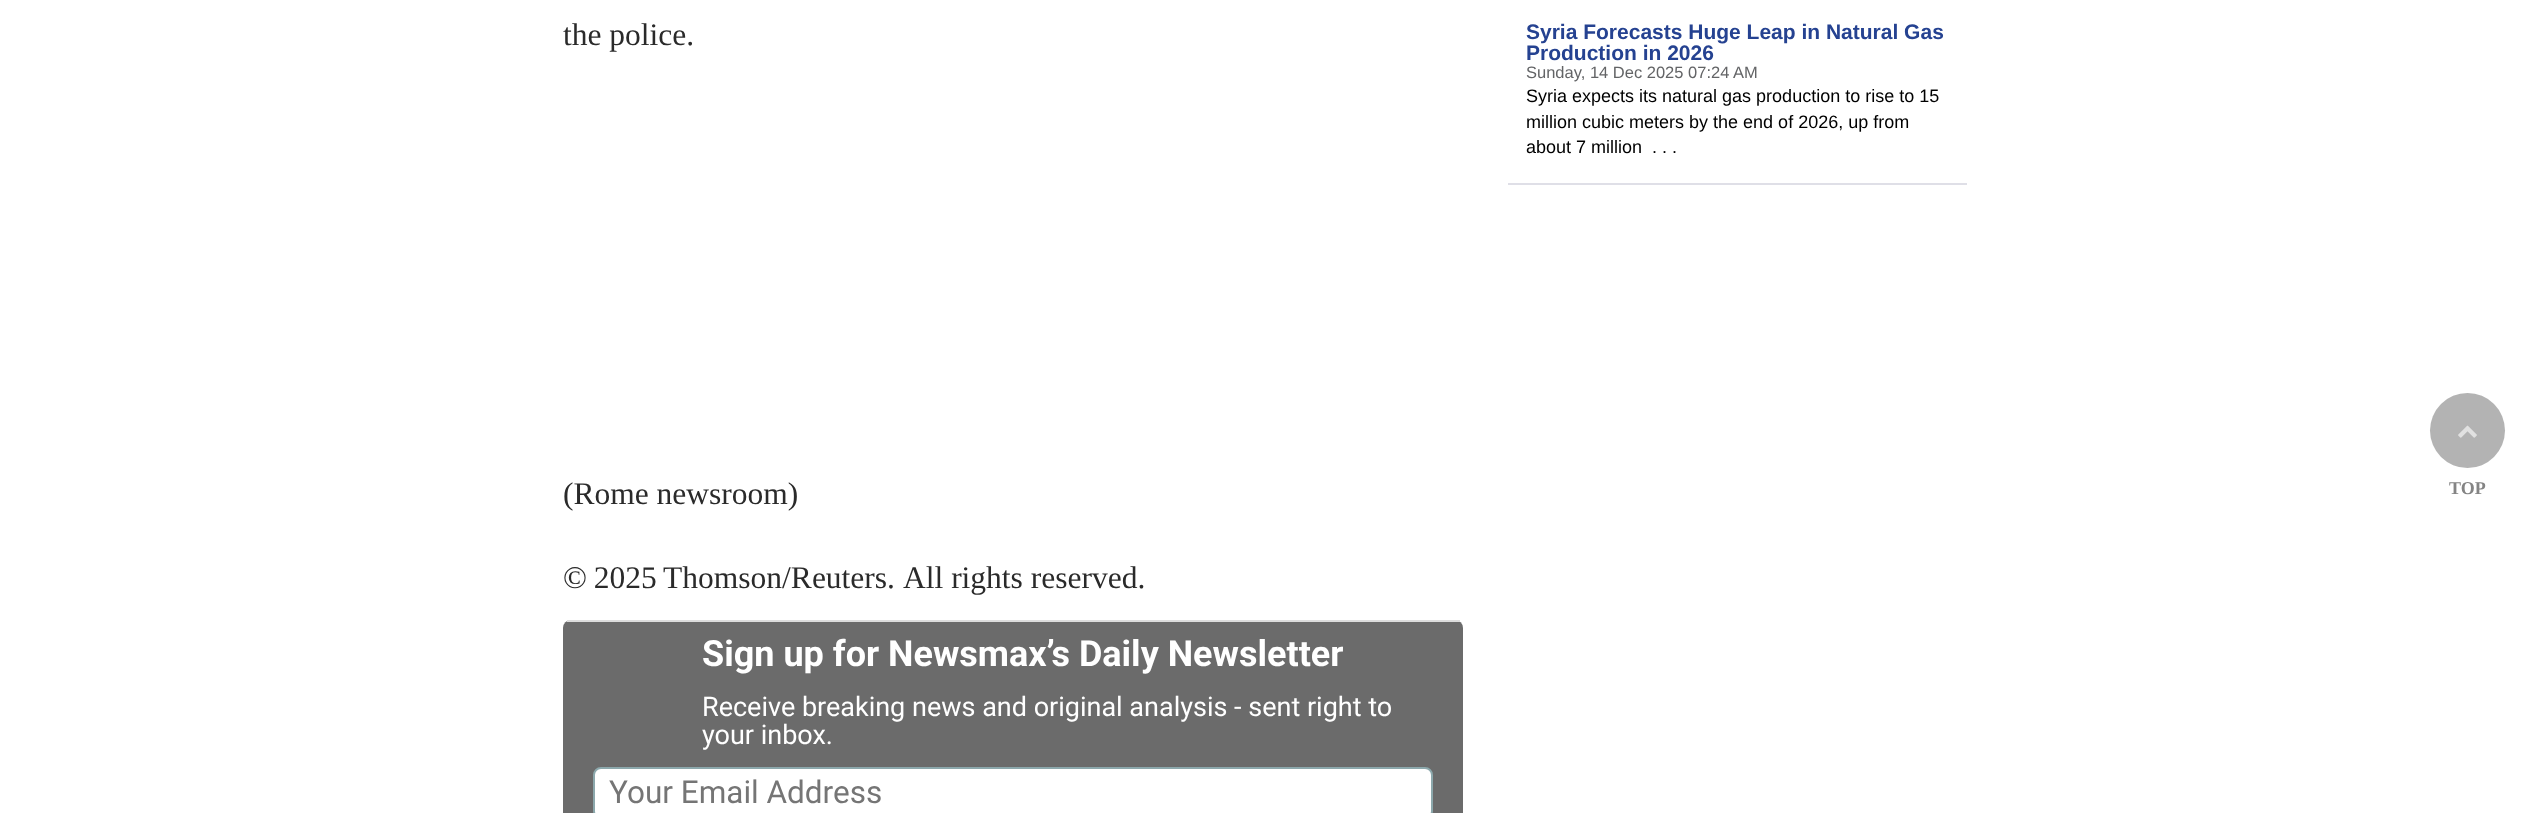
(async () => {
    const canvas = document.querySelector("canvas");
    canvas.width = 2534;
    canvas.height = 813;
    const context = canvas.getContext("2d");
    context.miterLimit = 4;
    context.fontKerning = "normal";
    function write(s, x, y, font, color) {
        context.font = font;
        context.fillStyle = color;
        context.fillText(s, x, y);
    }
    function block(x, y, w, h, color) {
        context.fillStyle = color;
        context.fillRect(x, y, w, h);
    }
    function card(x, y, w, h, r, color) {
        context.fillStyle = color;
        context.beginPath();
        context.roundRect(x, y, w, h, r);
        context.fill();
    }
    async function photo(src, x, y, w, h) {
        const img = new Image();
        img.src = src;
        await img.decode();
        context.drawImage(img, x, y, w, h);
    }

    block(0, 0, 2534, 813, "rgb(255, 255, 255)");
    write("the police.", 563, 45, "31.5px Liberation Serif", "rgb(42, 42, 42)");
    write("(Rome newsroom)", 563, 504, "31.5px Liberation Serif", "rgb(42, 42, 42)");
    context.wordSpacing = "-1px";
    write("© 2025 Thomson/Reuters.", 563, 588, "31.5px Liberation Serif", "rgb(42, 42, 42)");
    context.wordSpacing = "0px";
    write("All rights reserved.", 903, 588, "31.5px Liberation Serif", "rgb(42, 42, 42)");
    card(563, 620, 900, 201, 8, "rgb(107, 107, 107)");
    block(567, 620, 893, 2, "rgb(221, 221, 221)");
    write("Sign up for Newsmax’s Daily Newsletter", 702, 666, "bold 36px Roboto", "rgb(255, 255, 255)");
    write("Receive breaking news and original analysis - sent right to", 702, 716, "27px Roboto", "rgb(255, 255, 255)");
    write("your inbox.", 702, 744, "27px Roboto", "rgb(255, 255, 255)");
    context.beginPath();
    context.roundRect(594, 768, 838, 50, 7);
    context.fill();
    context.strokeStyle = "rgb(140, 168, 172)";
    context.lineWidth = 2;
    context.stroke();
    write("Your Email Address", 609, 803, "31.5px Roboto", "rgb(117, 117, 117)");
    write("Syria Forecasts Huge Leap in Natural Gas", 1526, 39, "bold 21px Liberation Sans", "rgb(37, 66, 145)");
    write("Production in 2026", 1526, 60, "bold 21px Liberation Sans", "rgb(37, 66, 145)");
    write("Sunday, 14 Dec 2025 07:24 AM", 1526, 78, "16.5px Liberation Sans", "rgb(99, 100, 102)");
    write("Syria expects its natural gas production to rise to 15", 1526, 102, "18px Liberation Sans", "rgb(0, 0, 0)");
    write("million cubic meters by the end of 2026, up from", 1526, 128, "18px Liberation Sans", "rgb(0, 0, 0)");
    write("about 7 million  . . .", 1526, 153, "18px Liberation Sans", "rgb(0, 0, 0)");
    block(1508, 183, 459, 2, "rgb(223, 223, 231)");
    context.fillStyle = "rgb(179, 179, 179)";
    context.beginPath();
    context.arc(2467.5, 430.5, 37.5, 0, Math.PI * 2);
    context.fill();
    await photo("media/1.png", 2458, 425, 19, 13);
    write("TOP", 2449, 494, "bold 18px Liberation Serif", "rgb(132, 132, 132)");
})();
